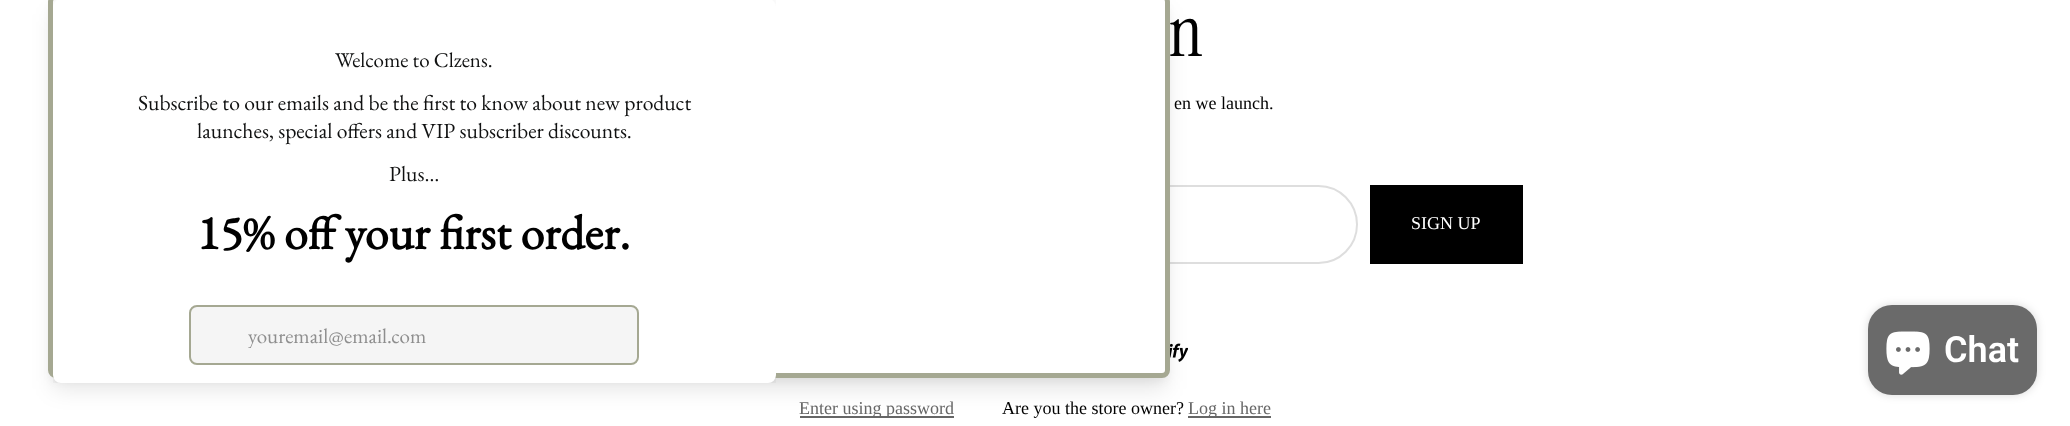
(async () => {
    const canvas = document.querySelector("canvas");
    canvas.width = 2070;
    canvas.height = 426;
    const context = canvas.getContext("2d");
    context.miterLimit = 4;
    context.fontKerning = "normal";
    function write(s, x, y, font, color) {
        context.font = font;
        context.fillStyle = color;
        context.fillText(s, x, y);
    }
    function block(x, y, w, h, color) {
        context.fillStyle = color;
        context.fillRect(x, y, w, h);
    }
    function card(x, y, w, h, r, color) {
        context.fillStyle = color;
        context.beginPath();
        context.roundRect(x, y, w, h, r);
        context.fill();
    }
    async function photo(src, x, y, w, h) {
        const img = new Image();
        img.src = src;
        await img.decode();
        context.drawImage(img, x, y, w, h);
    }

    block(0, 0, 2070, 426, "rgb(255, 255, 255)");
    context.beginPath();
    context.roundRect(549, 186, 808, 77, 38.5);
    context.strokeStyle = "rgb(222, 222, 222)";
    context.lineWidth = 2;
    context.stroke();
    await photo("media/2.png", 1170, 343, 18, 19);
    context.fillStyle = "rgba(0, 0, 0, 0.05)";
    context.filter = "blur(4.5px)";
    context.beginPath();
    context.roundRect(51, 3, 1116, 378, 5);
    context.fill();
    context.filter = "none";
    block(800, 416, 154, 2, "rgb(102, 102, 102)");
    block(1188, 416, 83, 2, "rgb(102, 102, 102)");
    context.fillStyle = "rgba(0, 0, 0, 0.1)";
    context.filter = "blur(11px)";
    context.beginPath();
    context.roundRect(53, 14, 1113, 375, 3);
    context.fill();
    context.filter = "none";
    context.fillStyle = "rgb(255, 255, 255)";
    context.beginPath();
    context.roundRect(50.5, -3.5, 1117, 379, 5.5);
    context.fill();
    context.strokeStyle = "rgb(165, 168, 146)";
    context.lineWidth = 5;
    context.stroke();
    context.save();
    context.beginPath();
    context.rect(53, 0, 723, 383);
    context.clip();
    context.fillStyle = "rgba(0, 0, 0, 0.05)";
    context.filter = "blur(4.5px)";
    context.beginPath();
    context.roundRect(56, 8, 717, 378, 5);
    context.fill();
    context.filter = "none";
    context.fillStyle = "rgba(0, 0, 0, 0.12)";
    context.filter = "blur(15px)";
    context.beginPath();
    context.roundRect(57, 3, 714, 375, 3);
    context.fill();
    context.filter = "none";
    context.restore();
    card(53, -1, 723, 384, 8, "rgb(255, 255, 255)");
    write("Welcome to Clzens.", 335, 67, "21px EB Garamond", "rgb(16, 17, 17)");
    write("Subscribe to our emails and be the first to know about new product", 138, 110, "21.6px EB Garamond", "rgb(16, 17, 17)");
    write("launches, special offers and VIP subscriber discounts.", 197, 138, "21.6px EB Garamond", "rgb(16, 17, 17)");
    write("Plus…", 389, 181, "21.6px EB Garamond", "rgb(16, 17, 17)");
    write("15% off your first order.", 197, 249, "bold 48px EB Garamond", "rgb(0, 0, 0)");
    context.fillStyle = "rgb(245, 245, 245)";
    context.beginPath();
    context.roundRect(190, 306, 448, 58, 7);
    context.fill();
    context.lineWidth = 2;
    context.stroke();
    context.save();
    context.beginPath();
    context.rect(194, 321, 441, 27);
    context.clip();
    write("youremail@email.com", 248, 343, "21px EB Garamond", "rgb(142, 142, 142)");
    context.restore();
    write("n", 1169, 56, "72px Instrument Serif", "rgb(0, 0, 0)");
    write("en we launch.", 1174, 109, "18px Liberation Serif", "rgb(0, 0, 0)");
    block(1370, 185, 153, 79, "rgb(0, 0, 0)");
    write("SIGN UP", 1411, 229, "18px Liberation Serif", "rgb(255, 255, 255)");
    context.fillStyle = "rgba(0, 0, 0, 0.15)";
    context.filter = "blur(4px)";
    context.beginPath();
    context.roundRect(1868, 305, 169, 90, 24);
    context.fill();
    context.filter = "none";
    card(1868, 305, 169, 90, 24, "rgb(106, 106, 106)");
    await photo("media/1.png", 1886, 331, 44, 44);
    write("Chat", 1944, 362, "600 36px Roboto", "rgb(255, 255, 255)");
    write("Enter using password", 799, 414, "18px Liberation Serif", "rgb(102, 102, 102)");
    write("Are you the store owner?", 1002, 414, "18px Liberation Serif", "rgb(0, 0, 0)");
    write("Log in here", 1188, 414, "18px Liberation Serif", "rgb(102, 102, 102)");
})();
